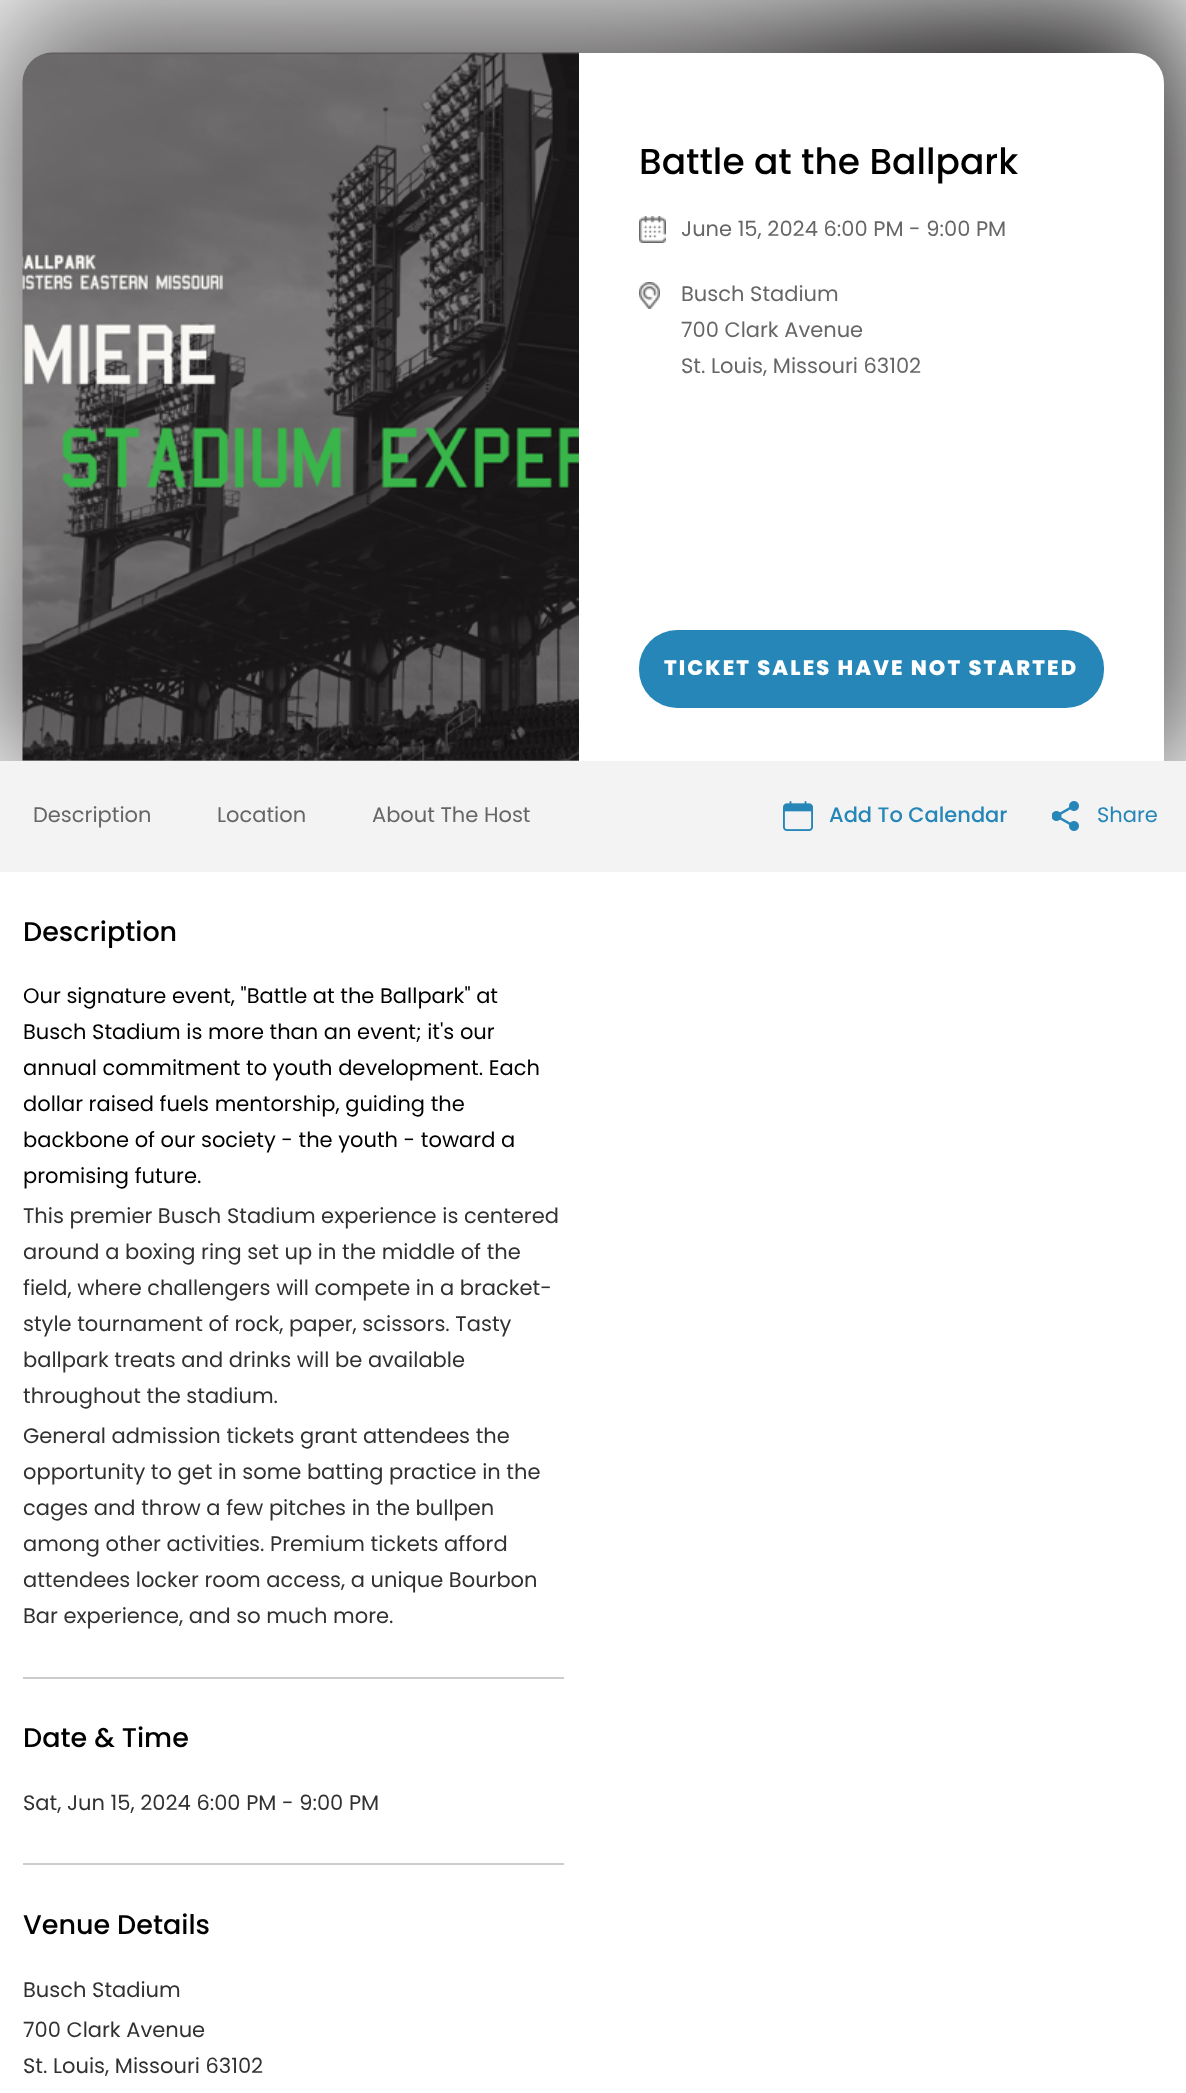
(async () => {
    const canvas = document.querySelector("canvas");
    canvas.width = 1186;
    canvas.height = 2093;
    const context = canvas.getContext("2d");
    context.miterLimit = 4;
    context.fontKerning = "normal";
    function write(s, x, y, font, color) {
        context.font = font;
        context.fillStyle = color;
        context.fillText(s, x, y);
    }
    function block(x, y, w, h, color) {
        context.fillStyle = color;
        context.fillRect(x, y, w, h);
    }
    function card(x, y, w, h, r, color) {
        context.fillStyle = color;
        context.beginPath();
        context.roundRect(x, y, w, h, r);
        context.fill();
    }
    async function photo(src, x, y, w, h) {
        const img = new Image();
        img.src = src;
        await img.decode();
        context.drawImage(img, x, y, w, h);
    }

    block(0, 0, 1186, 2093, "rgb(255, 255, 255)");
    await photo("media/1.png", 0, 0, 1186, 761);
    await photo("media/2.png", 22, 52, 557, 709);
    context.beginPath();
    context.roundRect(579, 53, 585, 708, [0, 30, 0, 0]);
    context.fill();
    write("Battle at the Ballpark", 639, 174, "500 36px Poppins", "rgb(0, 0, 0)");
    await photo("media/3.png", 639, 216, 27, 27);
    write("June 15, 2024 6:00 PM - 9:00 PM", 681, 236, "21px Poppins", "rgb(102, 102, 102)");
    await photo("media/4.png", 639, 282, 21, 27);
    write("Busch Stadium", 681, 301, "21px Poppins", "rgb(102, 102, 102)");
    write("700 Clark Avenue", 681, 337, "21px Poppins", "rgb(102, 102, 102)");
    write("St. Louis, Missouri 63102", 681, 373, "21px Poppins", "rgb(102, 102, 102)");
    card(639, 630, 465, 78, 38, "rgb(37, 134, 183)");
    context.letterSpacing = "2.1px";
    write("TICKET SALES HAVE NOT STARTED", 664, 675, "800 21px Poppins", "rgb(255, 255, 255)");
    block(0, 761, 1186, 111, "rgb(243, 243, 243)");
    context.letterSpacing = "0px";
    write("Description", 33, 822, "21px Poppins", "rgb(102, 102, 102)");
    write("Location", 217, 822, "21px Poppins", "rgb(102, 102, 102)");
    write("About The Host", 372, 822, "21px Poppins", "rgb(102, 102, 102)");
    await photo("media/5.png", 783, 801, 30, 30);
    write("Add To Calendar", 829, 822, "500 21px Poppins", "rgb(37, 134, 183)");
    await photo("media/6.png", 1052, 801, 27, 30);
    write("Share", 1097, 822, "21px Poppins", "rgb(37, 134, 183)");
    block(23, 1677, 541, 2, "rgb(204, 204, 204)");
    write("Description", 23, 941, "500 27px Poppins", "rgb(0, 0, 0)");
    write("Our signature event, \"Battle at the Ballpark\" at", 23, 1003, "21px Poppins", "rgb(0, 0, 0)");
    write("Busch Stadium is more than an event; it's our", 23, 1039, "21px Poppins", "rgb(0, 0, 0)");
    write("annual commitment to youth development. Each", 23, 1075, "21px Poppins", "rgb(0, 0, 0)");
    write("dollar raised fuels mentorship, guiding the", 23, 1111, "21px Poppins", "rgb(0, 0, 0)");
    write("backbone of our society - the youth - toward a", 23, 1147, "21px Poppins", "rgb(0, 0, 0)");
    write("promising future.", 23, 1183, "21px Poppins", "rgb(0, 0, 0)");
    write("This premier Busch Stadium experience is centered", 23, 1223, "21px Poppins", "rgb(49, 49, 49)");
    write("around a boxing ring set up in the middle of the", 23, 1259, "21px Poppins", "rgb(49, 49, 49)");
    write("field, where challengers will compete in a bracket-", 23, 1295, "21px Poppins", "rgb(49, 49, 49)");
    write("style tournament of rock, paper, scissors. Tasty", 23, 1331, "21px Poppins", "rgb(49, 49, 49)");
    write("ballpark treats and drinks will be available", 23, 1367, "21px Poppins", "rgb(49, 49, 49)");
    write("throughout the stadium.", 23, 1403, "21px Poppins", "rgb(49, 49, 49)");
    write("General admission tickets grant attendees the", 23, 1443, "21px Poppins", "rgb(49, 49, 49)");
    write("opportunity to get in some batting practice in the", 23, 1479, "21px Poppins", "rgb(49, 49, 49)");
    write("cages and throw a few pitches in the bullpen", 23, 1515, "21px Poppins", "rgb(49, 49, 49)");
    write("among other activities. Premium tickets afford", 23, 1551, "21px Poppins", "rgb(49, 49, 49)");
    write("attendees locker room access, a unique Bourbon", 23, 1587, "21px Poppins", "rgb(49, 49, 49)");
    write("Bar experience, and so much more.", 23, 1623, "21px Poppins", "rgb(49, 49, 49)");
    block(23, 1863, 541, 2, "rgb(204, 204, 204)");
    write("Date & Time", 23, 1747, "500 27px Poppins", "rgb(0, 0, 0)");
    write("Sat, Jun 15, 2024 6:00 PM - 9:00 PM", 23, 1810, "21px Poppins", "rgb(49, 49, 49)");
    write("Venue Details", 23, 1934, "500 27px Poppins", "rgb(0, 0, 0)");
    write("Busch Stadium", 23, 1997, "21px Poppins", "rgb(49, 49, 49)");
    write("700 Clark Avenue", 23, 2037, "21px Poppins", "rgb(49, 49, 49)");
    write("St. Louis, Missouri 63102", 23, 2073, "21px Poppins", "rgb(49, 49, 49)");
})();
